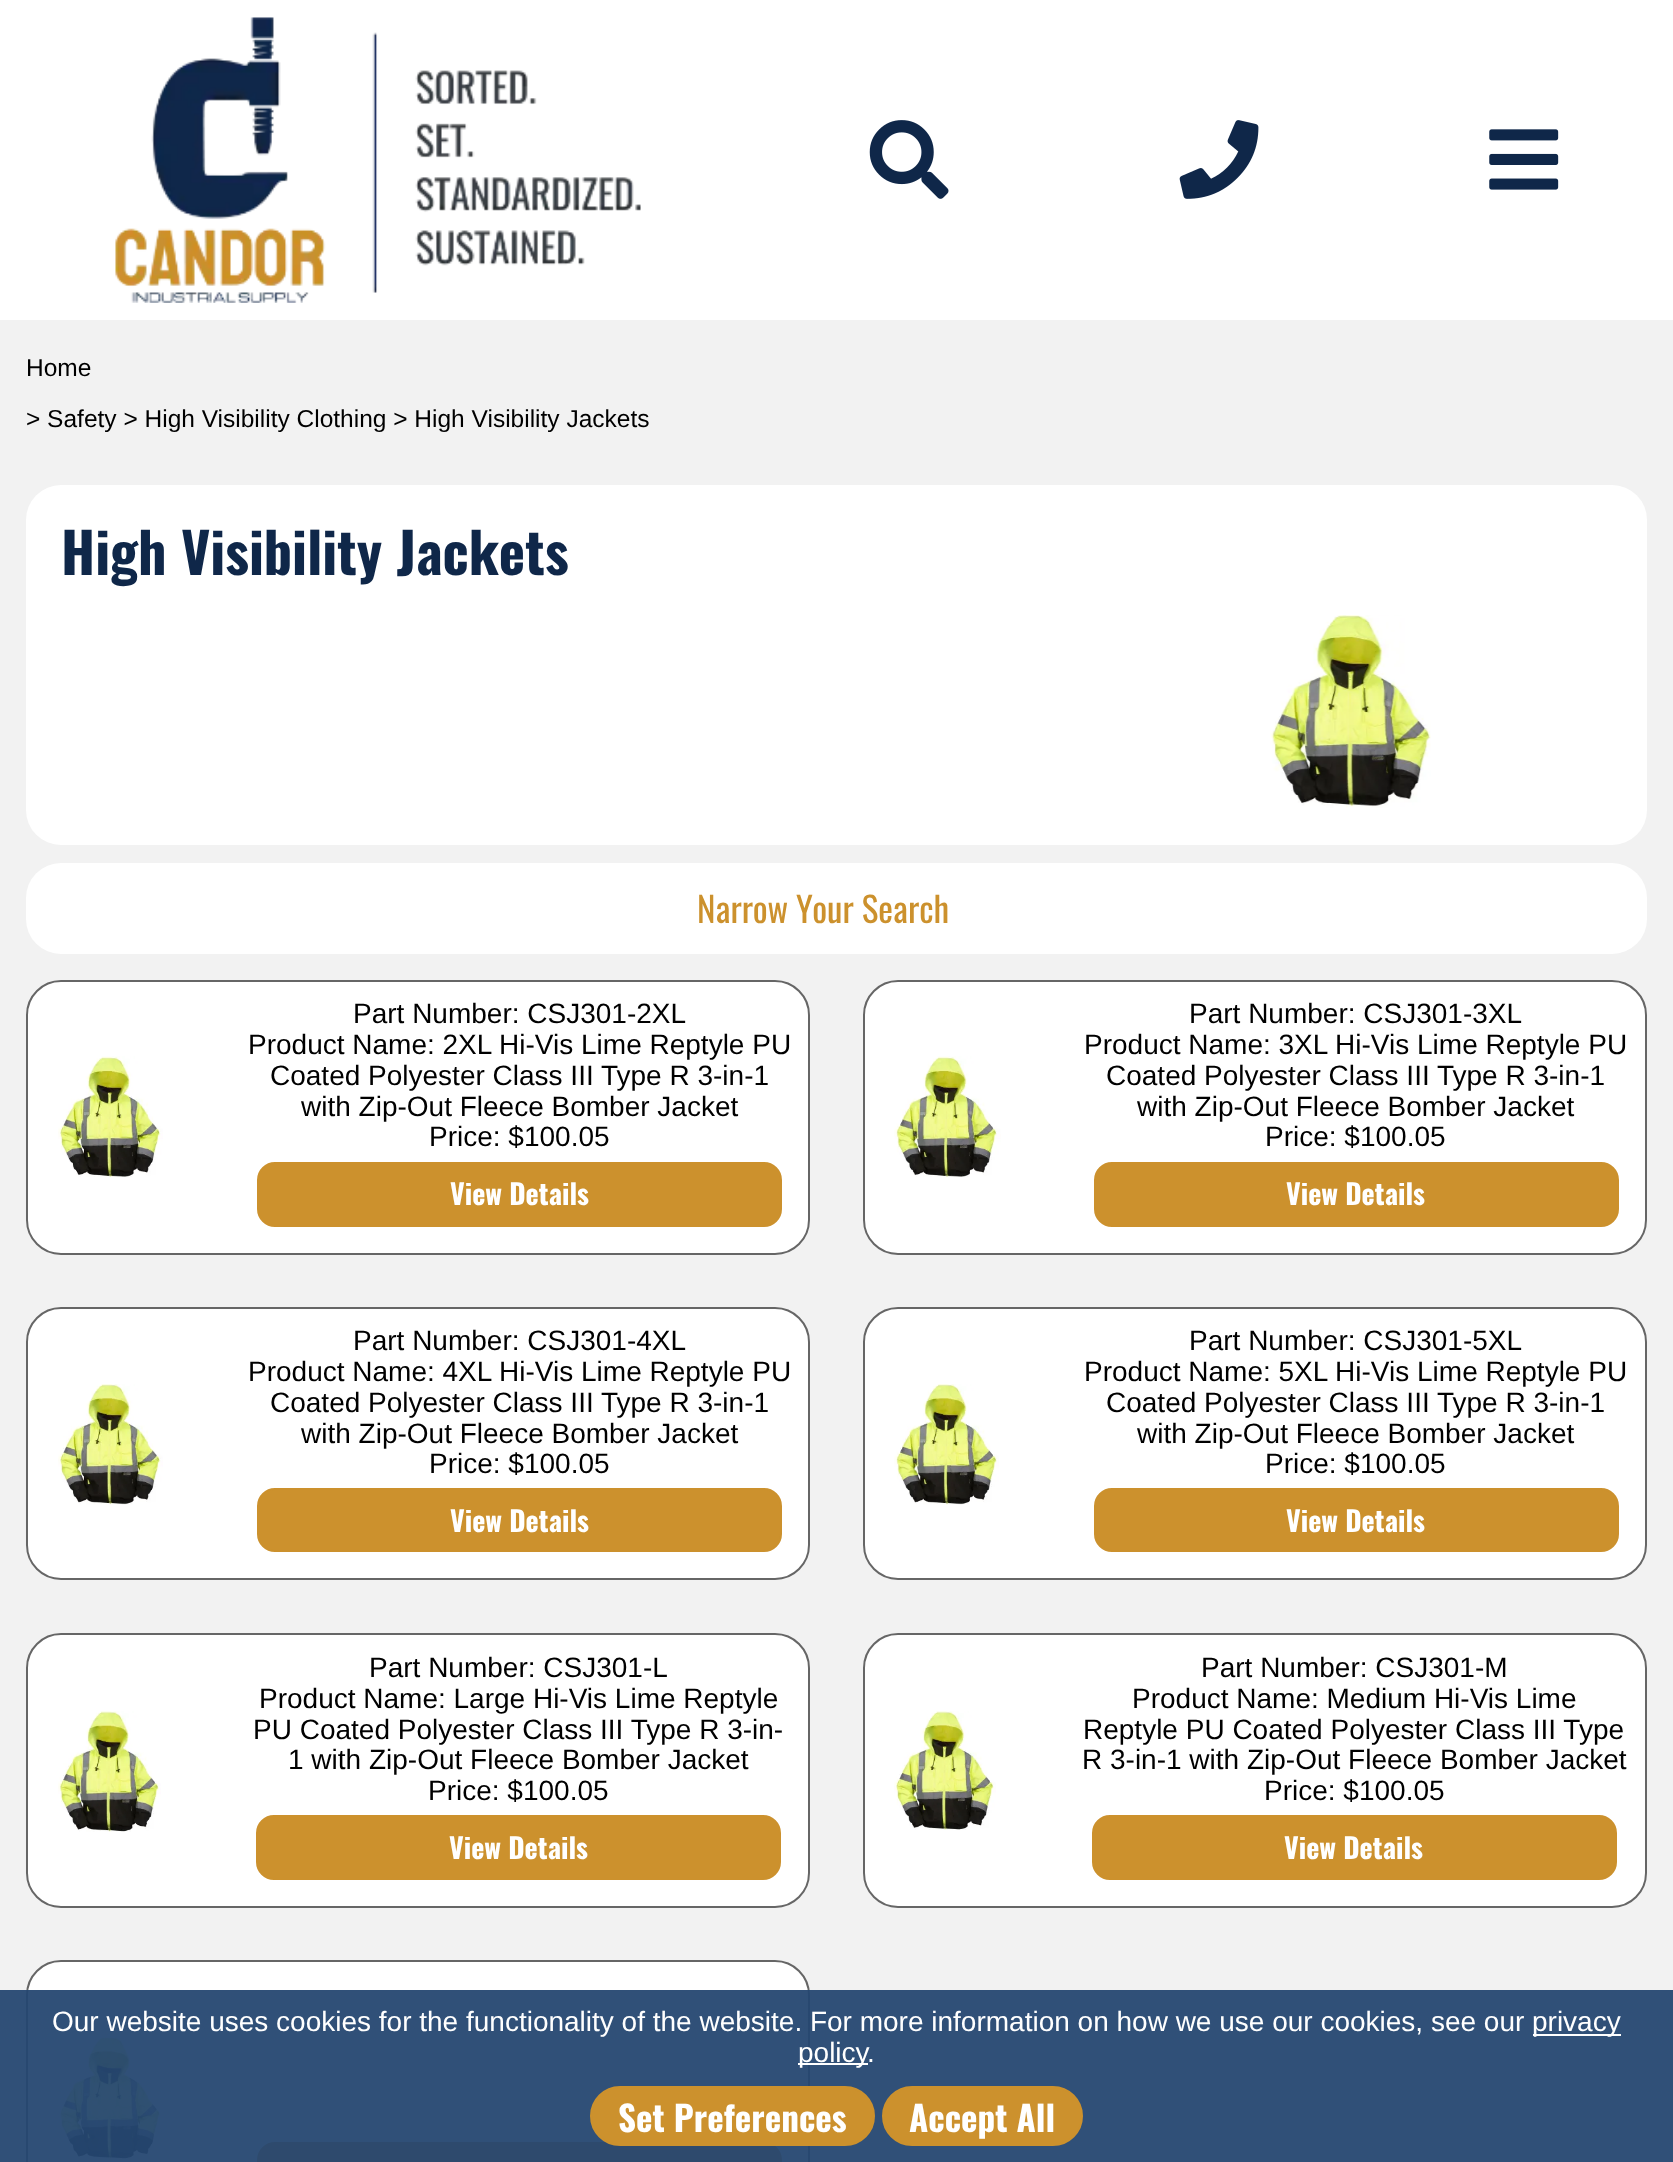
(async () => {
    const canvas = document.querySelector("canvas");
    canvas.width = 1673;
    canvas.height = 2162;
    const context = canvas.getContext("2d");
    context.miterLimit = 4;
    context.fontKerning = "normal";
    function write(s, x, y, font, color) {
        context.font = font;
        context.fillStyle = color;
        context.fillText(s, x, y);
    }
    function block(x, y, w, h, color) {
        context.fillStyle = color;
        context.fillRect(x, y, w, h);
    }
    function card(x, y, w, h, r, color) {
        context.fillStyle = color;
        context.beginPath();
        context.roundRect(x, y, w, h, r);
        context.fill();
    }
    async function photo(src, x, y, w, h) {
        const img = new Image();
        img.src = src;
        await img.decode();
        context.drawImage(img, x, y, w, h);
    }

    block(0, 0, 1673, 2162, "rgb(255, 255, 255)");
    await photo("media/1.png", 115, 17, 526, 286);
    await photo("media/2.png", 869, 120, 80, 79);
    await photo("media/3.png", 1179, 120, 80, 79);
    await photo("media/4.png", 1489, 129, 70, 61);
    block(0, 320, 1673, 1842, "rgb(242, 242, 242)");
    write("Home", 26, 376, "24.5px Liberation Sans", "rgb(0, 0, 0)");
    write("> Safety > High Visibility Clothing > High Visibility Jackets", 26, 427, "24.5px Liberation Sans", "rgb(0, 0, 0)");
    card(26, 485, 1621, 360, 35, "rgb(255, 255, 255)");
    write("High Visibility Jackets", 61, 575, "bold 56px Oswald", "rgb(15, 39, 73)");
    await photo("media/5.png", 1270, 615, 161, 193);
    card(26, 863, 1621, 91, 35, "rgb(255, 255, 255)");
    write("Narrow Your Search", 697, 923, "35px Oswald", "rgb(204, 145, 45)");
    context.fillStyle = "rgb(255, 255, 255)";
    context.beginPath();
    context.roundRect(27, 981, 782, 273, 34);
    context.fill();
    context.strokeStyle = "rgb(102, 102, 102)";
    context.lineWidth = 2;
    context.stroke();
    await photo("media/6.png", 58, 1056, 105, 122);
    write("Part Number: CSJ301-2XL", 353, 1023, "28px Liberation Sans", "rgb(0, 0, 0)");
    write("Product Name: 2XL Hi-Vis Lime Reptyle PU", 248, 1054, "28px Liberation Sans", "rgb(0, 0, 0)");
    write("Coated Polyester Class III Type R 3-in-1", 270, 1085, "28px Liberation Sans", "rgb(0, 0, 0)");
    write("with Zip-Out Fleece Bomber Jacket", 301, 1116, "28px Liberation Sans", "rgb(0, 0, 0)");
    write("Price: $100.05", 429, 1146, "28px Liberation Sans", "rgb(0, 0, 0)");
    context.fillStyle = "rgb(204, 145, 45)";
    context.beginPath();
    context.roundRect(258, 1163, 523, 63, 17);
    context.fill();
    context.strokeStyle = "rgb(204, 145, 45)";
    context.stroke();
    write("View Details", 450, 1205, "bold 28px Oswald", "rgb(255, 255, 255)");
    context.beginPath();
    context.roundRect(864, 981, 782, 273, 34);
    context.fill();
    context.strokeStyle = "rgb(102, 102, 102)";
    context.stroke();
    await photo("media/7.png", 894, 1056, 107, 122);
    write("Part Number: CSJ301-3XL", 1189, 1023, "28px Liberation Sans", "rgb(0, 0, 0)");
    write("Product Name: 3XL Hi-Vis Lime Reptyle PU", 1084, 1054, "28px Liberation Sans", "rgb(0, 0, 0)");
    write("Coated Polyester Class III Type R 3-in-1", 1106, 1085, "28px Liberation Sans", "rgb(0, 0, 0)");
    write("with Zip-Out Fleece Bomber Jacket", 1137, 1116, "28px Liberation Sans", "rgb(0, 0, 0)");
    write("Price: $100.05", 1265, 1146, "28px Liberation Sans", "rgb(0, 0, 0)");
    context.fillStyle = "rgb(204, 145, 45)";
    context.beginPath();
    context.roundRect(1095, 1163, 523, 63, 17);
    context.fill();
    context.strokeStyle = "rgb(204, 145, 45)";
    context.stroke();
    write("View Details", 1286, 1205, "bold 28px Oswald", "rgb(255, 255, 255)");
    context.beginPath();
    context.roundRect(27, 1308, 782, 271, 34);
    context.fill();
    context.strokeStyle = "rgb(102, 102, 102)";
    context.stroke();
    await photo("media/8.png", 58, 1384, 105, 121);
    write("Part Number: CSJ301-4XL", 353, 1350, "28px Liberation Sans", "rgb(0, 0, 0)");
    write("Product Name: 4XL Hi-Vis Lime Reptyle PU", 248, 1381, "28px Liberation Sans", "rgb(0, 0, 0)");
    write("Coated Polyester Class III Type R 3-in-1", 270, 1412, "28px Liberation Sans", "rgb(0, 0, 0)");
    write("with Zip-Out Fleece Bomber Jacket", 301, 1443, "28px Liberation Sans", "rgb(0, 0, 0)");
    write("Price: $100.05", 429, 1473, "28px Liberation Sans", "rgb(0, 0, 0)");
    context.fillStyle = "rgb(204, 145, 45)";
    context.beginPath();
    context.roundRect(258, 1489, 523, 62, 17);
    context.fill();
    context.strokeStyle = "rgb(204, 145, 45)";
    context.stroke();
    write("View Details", 450, 1532, "bold 28px Oswald", "rgb(255, 255, 255)");
    context.beginPath();
    context.roundRect(864, 1308, 782, 271, 34);
    context.fill();
    context.strokeStyle = "rgb(102, 102, 102)";
    context.stroke();
    await photo("media/9.png", 894, 1384, 105, 121);
    write("Part Number: CSJ301-5XL", 1189, 1350, "28px Liberation Sans", "rgb(0, 0, 0)");
    write("Product Name: 5XL Hi-Vis Lime Reptyle PU", 1084, 1381, "28px Liberation Sans", "rgb(0, 0, 0)");
    write("Coated Polyester Class III Type R 3-in-1", 1106, 1412, "28px Liberation Sans", "rgb(0, 0, 0)");
    write("with Zip-Out Fleece Bomber Jacket", 1137, 1443, "28px Liberation Sans", "rgb(0, 0, 0)");
    write("Price: $100.05", 1265, 1473, "28px Liberation Sans", "rgb(0, 0, 0)");
    context.fillStyle = "rgb(204, 145, 45)";
    context.beginPath();
    context.roundRect(1095, 1489, 523, 62, 17);
    context.fill();
    context.strokeStyle = "rgb(204, 145, 45)";
    context.stroke();
    write("View Details", 1286, 1532, "bold 28px Oswald", "rgb(255, 255, 255)");
    context.beginPath();
    context.roundRect(27, 1634, 782, 273, 34);
    context.fill();
    context.strokeStyle = "rgb(102, 102, 102)";
    context.stroke();
    await photo("media/10.png", 58, 1711, 103, 121);
    write("Part Number: CSJ301-L", 369, 1677, "28px Liberation Sans", "rgb(0, 0, 0)");
    write("Product Name: Large Hi-Vis Lime Reptyle", 259, 1708, "28px Liberation Sans", "rgb(0, 0, 0)");
    write("PU Coated Polyester Class III Type R 3-in-", 253, 1739, "28px Liberation Sans", "rgb(0, 0, 0)");
    write("1 with Zip-Out Fleece Bomber Jacket", 288, 1769, "28px Liberation Sans", "rgb(0, 0, 0)");
    write("Price: $100.05", 428, 1800, "28px Liberation Sans", "rgb(0, 0, 0)");
    context.fillStyle = "rgb(204, 145, 45)";
    context.beginPath();
    context.roundRect(257, 1816, 523, 63, 17);
    context.fill();
    context.strokeStyle = "rgb(204, 145, 45)";
    context.stroke();
    write("View Details", 449, 1859, "bold 28px Oswald", "rgb(255, 255, 255)");
    context.beginPath();
    context.roundRect(864, 1634, 782, 273, 34);
    context.fill();
    context.strokeStyle = "rgb(102, 102, 102)";
    context.stroke();
    await photo("media/11.png", 894, 1711, 102, 119);
    write("Part Number: CSJ301-M", 1201, 1677, "28px Liberation Sans", "rgb(0, 0, 0)");
    write("Product Name: Medium Hi-Vis Lime", 1132, 1708, "28px Liberation Sans", "rgb(0, 0, 0)");
    write("Reptyle PU Coated Polyester Class III Type", 1083, 1739, "28px Liberation Sans", "rgb(0, 0, 0)");
    write("R 3-in-1 with Zip-Out Fleece Bomber Jacket", 1082, 1769, "28px Liberation Sans", "rgb(0, 0, 0)");
    write("Price: $100.05", 1264, 1800, "28px Liberation Sans", "rgb(0, 0, 0)");
    context.fillStyle = "rgb(204, 145, 45)";
    context.beginPath();
    context.roundRect(1093, 1816, 523, 63, 17);
    context.fill();
    context.strokeStyle = "rgb(204, 145, 45)";
    context.stroke();
    write("View Details", 1284, 1859, "bold 28px Oswald", "rgb(255, 255, 255)");
    context.beginPath();
    context.roundRect(27, 1961, 782, 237, 34);
    context.fill();
    context.strokeStyle = "rgb(102, 102, 102)";
    context.stroke();
    await photo("media/12.png", 58, 2037, 105, 122);
    context.fillStyle = "rgb(204, 145, 45)";
    context.beginPath();
    context.roundRect(258, 2143, 523, 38, 17);
    context.fill();
    context.strokeStyle = "rgb(204, 145, 45)";
    context.stroke();
    block(0, 1990, 1673, 172, "rgba(37, 71, 113, 0.95)");
    write("Our website uses cookies for the functionality of the website. For more information on how we use our cookies, see our", 52, 2031, "28px Liberation Sans", "rgb(255, 255, 255)");
    block(1533, 2034, 88, 2, "rgb(255, 255, 255)");
    write("privacy", 1532, 2031, "28px Liberation Sans", "rgb(255, 255, 255)");
    block(798, 2063, 70, 2, "rgb(255, 255, 255)");
    write("policy", 798, 2062, "28px Liberation Sans", "rgb(255, 255, 255)");
    write(".", 867, 2062, "28px Liberation Sans", "rgb(255, 255, 255)");
    context.fillStyle = "rgb(204, 145, 45)";
    context.beginPath();
    context.roundRect(591, 2087, 283, 58, 29);
    context.fill();
    context.stroke();
    write("Set Preferences", 618, 2132, "bold 35px Oswald", "rgb(255, 255, 255)");
    context.fillStyle = "rgb(204, 145, 45)";
    context.beginPath();
    context.roundRect(883, 2087, 199, 58, 29);
    context.fill();
    context.stroke();
    write("Accept All", 909, 2132, "bold 35px Oswald", "rgb(255, 255, 255)");
})();
